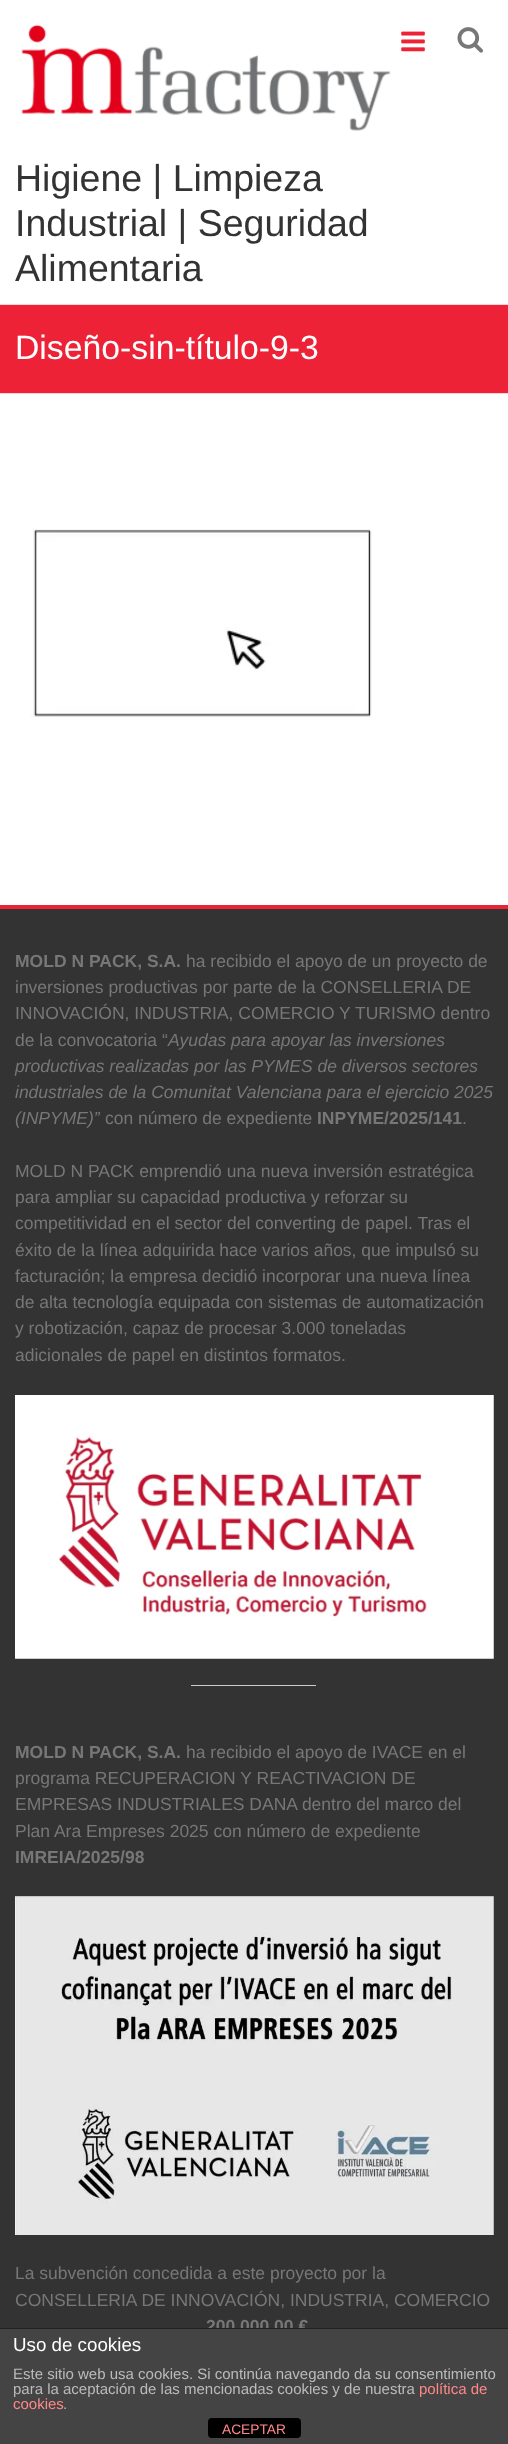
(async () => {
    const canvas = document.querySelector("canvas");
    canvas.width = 508;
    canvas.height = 2444;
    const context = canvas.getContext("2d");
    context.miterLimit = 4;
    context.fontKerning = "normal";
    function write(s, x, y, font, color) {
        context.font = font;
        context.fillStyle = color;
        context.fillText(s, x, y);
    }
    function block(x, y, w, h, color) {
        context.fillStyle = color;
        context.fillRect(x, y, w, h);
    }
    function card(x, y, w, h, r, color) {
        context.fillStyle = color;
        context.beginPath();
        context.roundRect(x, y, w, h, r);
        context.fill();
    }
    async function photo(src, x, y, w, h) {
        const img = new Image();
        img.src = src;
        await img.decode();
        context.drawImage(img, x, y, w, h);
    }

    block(0, 0, 508, 2444, "rgb(255, 255, 255)");
    await photo("media/1.png", 401, 31, 24, 21);
    await photo("media/2.png", 457, 27, 26, 26);
    await photo("media/3.png", 21, 24, 370, 107);
    write("Higiene | Limpieza", 15, 191, "37.5px Liberation Sans", "rgb(51, 51, 51)");
    write("Industrial | Seguridad", 15, 236, "37.5px Liberation Sans", "rgb(51, 51, 51)");
    write("Alimentaria", 15, 281, "37.5px Liberation Sans", "rgb(51, 51, 51)");
    block(0, 305, 508, 88, "rgb(237, 34, 54)");
    block(0, 304, 508, 1, "rgb(251, 211, 215)");
    block(0, 393, 508, 1, "rgb(251, 211, 215)");
    write("Diseño-sin-título-9-3", 15, 359, "33.75px Liberation Sans", "rgb(255, 255, 255)");
    await photo("media/4.png", 30, 529, 342, 188);
    block(0, 909, 508, 1419, "rgb(51, 51, 51)");
    block(0, 905, 508, 4, "rgb(237, 34, 54)");
    write("MOLD N PACK, S.A.", 15, 967, "bold 17.5px Liberation Sans", "rgb(119, 119, 119)");
    write("ha recibido el apoyo de un proyecto de", 186, 967, "17.5px Liberation Sans", "rgb(119, 119, 119)");
    write("inversiones productivas por parte de la CONSELLERIA DE", 15, 993, "17.5px Liberation Sans", "rgb(119, 119, 119)");
    write("INNOVACIÓN, INDUSTRIA, COMERCIO Y TURISMO dentro", 15, 1019, "17.5px Liberation Sans", "rgb(119, 119, 119)");
    write("de la convocatoria “", 15, 1046, "17.5px Liberation Sans", "rgb(119, 119, 119)");
    write("Ayudas para apoyar las inversiones", 168, 1046, "italic 17.5px Liberation Sans", "rgb(119, 119, 119)");
    write("productivas realizadas por las PYMES de diversos sectores", 15, 1072, "italic 17.5px Liberation Sans", "rgb(119, 119, 119)");
    write("industriales de la Comunitat Valenciana para el ejercicio 2025", 15, 1098, "italic 17.5px Liberation Sans", "rgb(119, 119, 119)");
    write("(INPYME)”", 15, 1124, "italic 17.5px Liberation Sans", "rgb(119, 119, 119)");
    write("con número de expediente", 105, 1124, "17.5px Liberation Sans", "rgb(119, 119, 119)");
    write("INPYME/2025/141", 317, 1124, "bold 17.5px Liberation Sans", "rgb(119, 119, 119)");
    write(".", 462, 1124, "17.5px Liberation Sans", "rgb(119, 119, 119)");
    write("MOLD N PACK emprendió una nueva inversión estratégica", 15, 1177, "17.5px Liberation Sans", "rgb(119, 119, 119)");
    write("para ampliar su capacidad productiva y reforzar su", 15, 1203, "17.5px Liberation Sans", "rgb(119, 119, 119)");
    write("competitividad en el sector del converting de papel. Tras el", 15, 1229, "17.5px Liberation Sans", "rgb(119, 119, 119)");
    write("éxito de la línea adquirida hace varios años, que impulsó su", 15, 1256, "17.5px Liberation Sans", "rgb(119, 119, 119)");
    write("facturación; la empresa decidió incorporar una nueva línea", 15, 1282, "17.5px Liberation Sans", "rgb(119, 119, 119)");
    write("de alta tecnología equipada con sistemas de automatización", 15, 1308, "17.5px Liberation Sans", "rgb(119, 119, 119)");
    write("y robotización, capaz de procesar 3.000 toneladas", 15, 1334, "17.5px Liberation Sans", "rgb(119, 119, 119)");
    write("adicionales de papel en distintos formatos.", 15, 1361, "17.5px Liberation Sans", "rgb(119, 119, 119)");
    await photo("media/5.png", 15, 1395, 479, 264);
    block(191, 1685, 125, 1, "rgb(204, 204, 204)");
    write("MOLD N PACK, S.A.", 15, 1758, "bold 17.5px Liberation Sans", "rgb(119, 119, 119)");
    write("ha recibido el apoyo de IVACE en el", 186, 1758, "17.5px Liberation Sans", "rgb(119, 119, 119)");
    write("programa RECUPERACION Y REACTIVACION DE", 15, 1784, "17.5px Liberation Sans", "rgb(119, 119, 119)");
    write("EMPRESAS INDUSTRIALES DANA dentro del marco del", 15, 1810, "17.5px Liberation Sans", "rgb(119, 119, 119)");
    write("Plan Ara Empreses 2025 con número de expediente", 15, 1837, "17.5px Liberation Sans", "rgb(119, 119, 119)");
    write("IMREIA/2025/98", 15, 1863, "bold 17.5px Liberation Sans", "rgb(119, 119, 119)");
    await photo("media/6.png", 15, 1896, 479, 339);
    write("La subvención concedida a este proyecto por la", 15, 2279, "17.5px Liberation Sans", "rgb(119, 119, 119)");
    write("CONSELLERIA DE INNOVACIÓN, INDUSTRIA, COMERCIO", 15, 2306, "17.5px Liberation Sans", "rgb(119, 119, 119)");
    write("200.000,00 €", 206, 2332, "bold 17.5px Liberation Sans", "rgb(119, 119, 119)");
    block(0, 2329, 508, 115, "rgb(68, 68, 68)");
    block(0, 2328, 508, 1, "rgb(34, 34, 34)");
    write("Uso de cookies", 13, 2351, "18.75px Liberation Sans", "rgb(255, 255, 255)");
    write("Este sitio web usa cookies. Si continúa navegando da su consentimiento", 13, 2379, "15px Liberation Sans", "rgb(187, 187, 187)");
    write("para la aceptación de las mencionadas cookies y de nuestra", 13, 2394, "15px Liberation Sans", "rgb(187, 187, 187)");
    write("política de", 419, 2394, "15px Liberation Sans", "rgb(255, 136, 136)");
    write("cookies", 13, 2409, "15px Liberation Sans", "rgb(255, 136, 136)");
    write(".", 63, 2409, "15px Liberation Sans", "rgb(187, 187, 187)");
    card(208, 2418, 93, 20, 4, "rgb(0, 0, 0)");
    write("ACEPTAR", 222, 2434, "13.75px Liberation Sans", "rgb(255, 136, 136)");
})();
